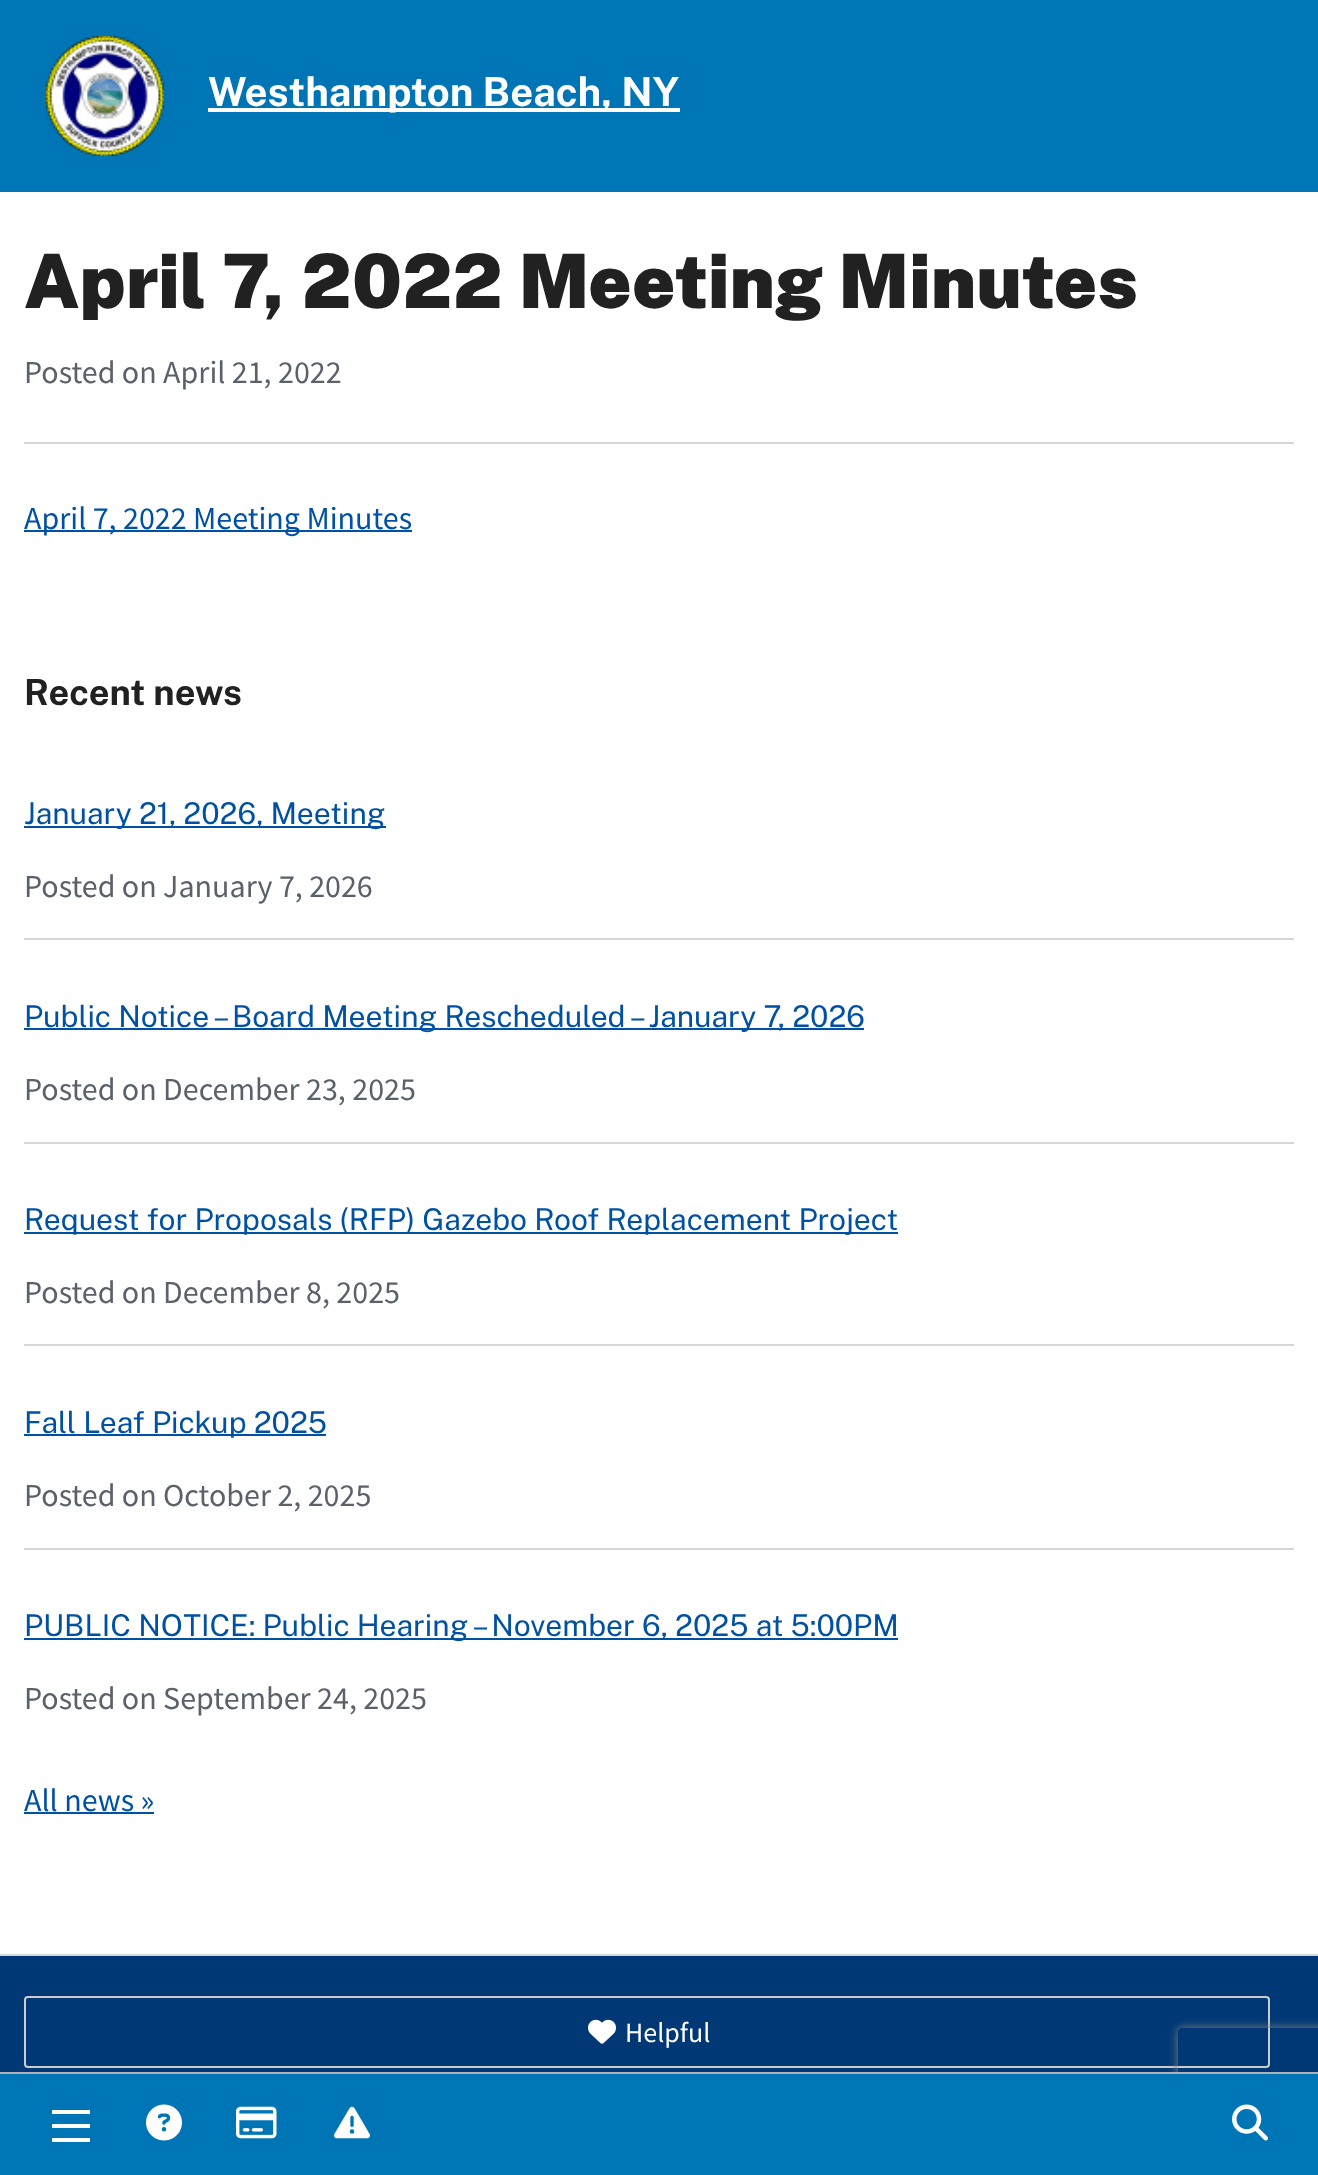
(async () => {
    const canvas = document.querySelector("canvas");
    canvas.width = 1318;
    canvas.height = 2175;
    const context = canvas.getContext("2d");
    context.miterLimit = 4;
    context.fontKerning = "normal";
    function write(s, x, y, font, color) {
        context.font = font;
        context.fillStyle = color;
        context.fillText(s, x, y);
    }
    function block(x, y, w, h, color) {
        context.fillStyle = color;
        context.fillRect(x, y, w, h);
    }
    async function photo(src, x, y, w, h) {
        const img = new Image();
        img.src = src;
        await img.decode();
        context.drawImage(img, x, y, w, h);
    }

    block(0, 0, 1318, 2175, "rgb(255, 255, 255)");
    block(0, 0, 1318, 192, "rgb(0, 117, 181)");
    await photo("media/1.png", 46, 36, 118, 120);
    block(208, 108, 472, 4, "rgb(255, 255, 255)");
    write("Westhampton Beach, NY", 208, 106, "bold 40px Public Sans", "rgb(255, 255, 255)");
    block(0, 1956, 1318, 116, "rgb(0, 56, 117)");
    context.beginPath();
    context.roundRect(25, 1997, 1244, 70, 3);
    context.strokeStyle = "rgb(204, 204, 204)";
    context.lineWidth = 2;
    context.stroke();
    context.save();
    context.beginPath();
    context.moveTo(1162, 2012);
    context.lineTo(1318, 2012);
    context.lineTo(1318, 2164);
    context.lineTo(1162, 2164);
    context.closePath();
    context.moveTo(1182, 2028);
    context.lineTo(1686, 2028);
    context.bezierCurveTo(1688, 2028, 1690, 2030, 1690, 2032);
    context.lineTo(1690, 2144);
    context.bezierCurveTo(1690, 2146, 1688, 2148, 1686, 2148);
    context.lineTo(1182, 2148);
    context.bezierCurveTo(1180, 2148, 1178, 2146, 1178, 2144);
    context.lineTo(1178, 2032);
    context.bezierCurveTo(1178, 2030, 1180, 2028, 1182, 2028);
    context.closePath();
    context.clip("evenodd");
    context.fillStyle = "rgb(128, 128, 128)";
    context.filter = "blur(5px)";
    context.beginPath();
    context.roundRect(1178, 2028, 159, 120, 4);
    context.fill();
    context.filter = "none";
    context.restore();
    block(0, 2074, 1318, 101, "rgb(0, 117, 181)");
    block(0, 2072, 1318, 2, "rgb(174, 176, 181)");
    await photo("media/2.png", 146, 2104, 36, 37);
    await photo("media/3.png", 236, 2106, 41, 33);
    await photo("media/4.png", 334, 2106, 36, 33);
    await photo("media/5.png", 1232, 2104, 36, 37);
    block(52, 2124, 38, 4, "rgb(255, 255, 255)");
    block(52, 2110, 38, 4, "rgb(255, 255, 255)");
    block(52, 2138, 38, 4, "rgb(255, 255, 255)");
    write("April 7, 2022 Meeting Minutes", 24, 308, "900 75px Public Sans", "rgb(33, 33, 33)");
    write("Posted on April 21, 2022", 24, 383, "32px Source Sans Pro", "rgb(91, 97, 107)");
    block(24, 442, 1270, 2, "rgb(214, 215, 217)");
    block(24, 530, 388, 2, "rgb(0, 81, 163)");
    write("April 7, 2022 Meeting Minutes", 24, 529, "32px Source Sans Pro", "rgb(0, 81, 163)");
    write("Recent news", 24, 705, "bold 36px Public Sans", "rgb(33, 33, 33)");
    block(24, 826, 362, 2, "rgb(0, 81, 163)");
    write("January 21, 2026, Meeting", 24, 824, "30px Public Sans", "rgb(0, 81, 163)");
    write("Posted on January 7, 2026", 24, 897, "32px Source Sans Pro", "rgb(91, 97, 107)");
    block(24, 938, 1270, 2, "rgb(214, 215, 217)");
    block(24, 1028, 840, 2, "rgb(0, 81, 163)");
    write("Public Notice – Board Meeting Rescheduled – January 7, 2026", 24, 1027, "30px Public Sans", "rgb(0, 81, 163)");
    write("Posted on December 23, 2025", 24, 1100, "32px Source Sans Pro", "rgb(91, 97, 107)");
    block(24, 1142, 1270, 2, "rgb(214, 215, 217)");
    block(24, 1232, 874, 2, "rgb(0, 81, 163)");
    write("Request for Proposals (RFP) Gazebo Roof Replacement Project", 24, 1230, "30px Public Sans", "rgb(0, 81, 163)");
    write("Posted on December 8, 2025", 24, 1303, "32px Source Sans Pro", "rgb(91, 97, 107)");
    block(24, 1344, 1270, 2, "rgb(214, 215, 217)");
    block(24, 1434, 302, 2, "rgb(0, 81, 163)");
    write("Fall Leaf Pickup 2025", 24, 1433, "30px Public Sans", "rgb(0, 81, 163)");
    write("Posted on October 2, 2025", 24, 1506, "32px Source Sans Pro", "rgb(91, 97, 107)");
    block(24, 1548, 1270, 2, "rgb(214, 215, 217)");
    block(24, 1638, 874, 2, "rgb(0, 81, 163)");
    write("PUBLIC NOTICE: Public Hearing – November 6, 2025 at 5:00PM", 24, 1636, "30px Public Sans", "rgb(0, 81, 163)");
    write("Posted on September 24, 2025", 24, 1709, "32px Source Sans Pro", "rgb(91, 97, 107)");
    write("All news »", 24, 1811, "32px Source Sans Pro", "rgb(0, 81, 163)");
    block(24, 1812, 130, 2, "rgb(0, 81, 163)");
    block(0, 1954, 1318, 2, "rgb(214, 215, 217)");
    await photo("media/6.png", 588, 2019, 28, 25);
    write("Helpful", 625, 2042, "28px Source Sans Pro", "rgb(255, 255, 255)");
})();
